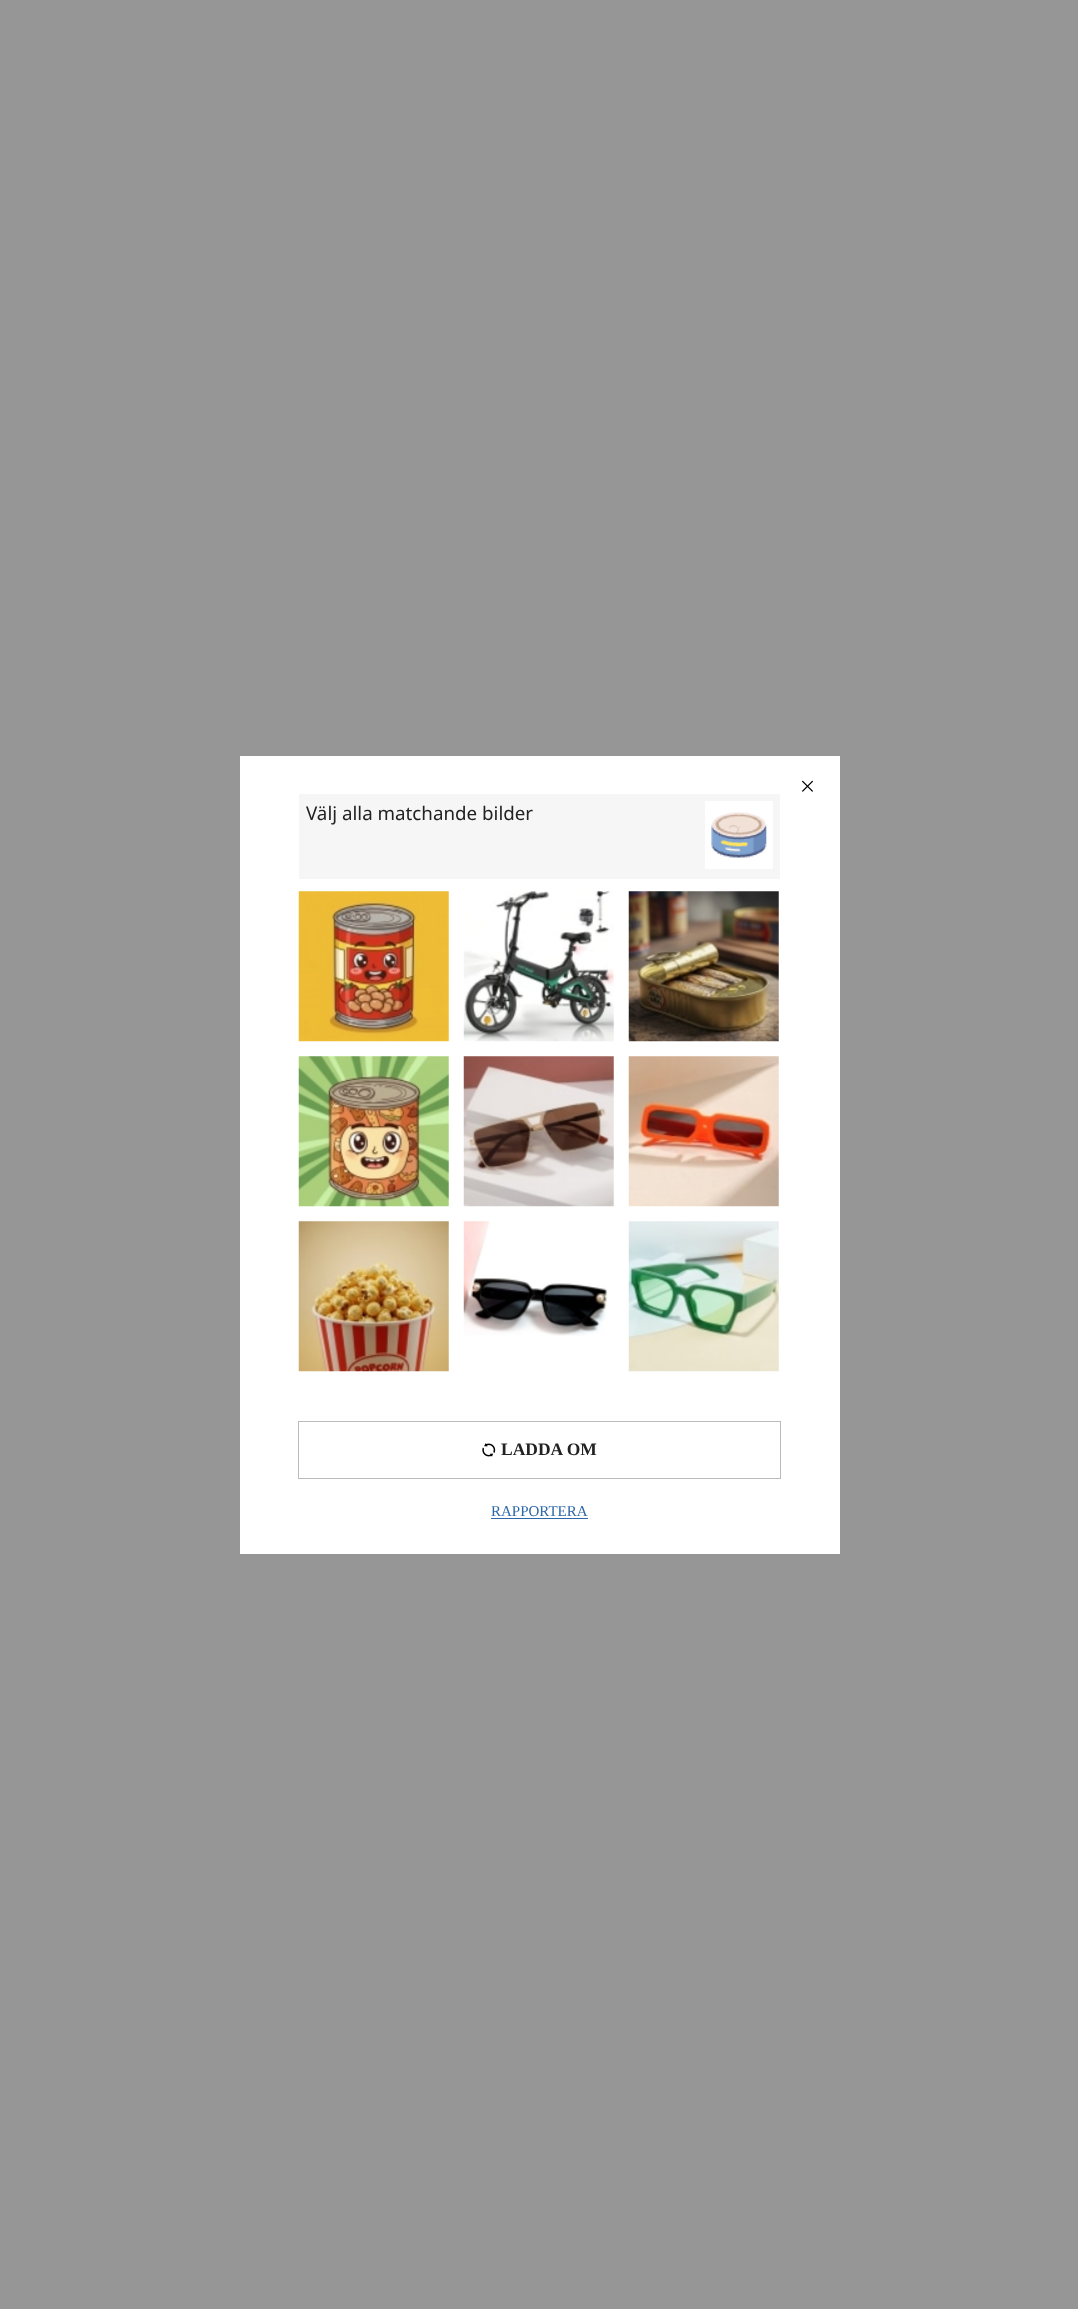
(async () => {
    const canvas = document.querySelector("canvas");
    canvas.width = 1078;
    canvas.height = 2309;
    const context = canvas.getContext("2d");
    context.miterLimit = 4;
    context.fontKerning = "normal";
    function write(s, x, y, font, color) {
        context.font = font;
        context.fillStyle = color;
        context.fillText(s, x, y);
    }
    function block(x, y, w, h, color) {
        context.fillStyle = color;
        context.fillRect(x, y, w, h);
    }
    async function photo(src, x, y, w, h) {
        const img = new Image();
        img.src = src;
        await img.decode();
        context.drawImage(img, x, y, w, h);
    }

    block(0, 0, 1078, 2309, "rgb(150, 150, 150)");
    context.fillStyle = "rgba(0, 0, 0, 0.3)";
    context.filter = "blur(0.5px)";
    context.beginPath();
    context.rect(240, 756, 600, 798);
    context.fill();
    context.filter = "none";
    block(240, 756, 600, 798, "rgb(255, 255, 255)");
    await photo("media/1.png", 802, 780, 11, 12);
    block(299, 794, 481, 85, "rgb(246, 246, 246)");
    write("Välj alla matchande bilder", 306, 820, "18.75px Noto Sans", "rgb(34, 34, 34)");
    block(705, 801, 68, 68, "rgb(255, 255, 255)");
    await photo("media/2.png", 711, 812, 56, 46);
    await photo("media/3.png", 298, 891, 151, 151);
    await photo("media/4.png", 463, 891, 151, 151);
    await photo("media/5.png", 628, 891, 151, 151);
    await photo("media/6.png", 298, 1056, 151, 151);
    await photo("media/7.png", 463, 1056, 151, 151);
    await photo("media/8.png", 628, 1056, 151, 151);
    await photo("media/9.png", 298, 1221, 151, 151);
    await photo("media/10.png", 463, 1221, 146, 115);
    await photo("media/11.png", 628, 1221, 151, 151);
    context.strokeStyle = "rgb(187, 187, 187)";
    context.strokeRect(298.5, 1421.5, 482, 57);
    await photo("media/12.png", 482, 1443, 14, 14);
    write("LADDA OM", 501, 1455, "bold 17.5px Liberation Serif", "rgb(34, 34, 34)");
    write("RAPPORTERA", 491, 1516, "15px Liberation Serif", "rgb(45, 104, 168)");
    block(491, 1518, 97, 1, "rgb(45, 104, 168)");
})();
